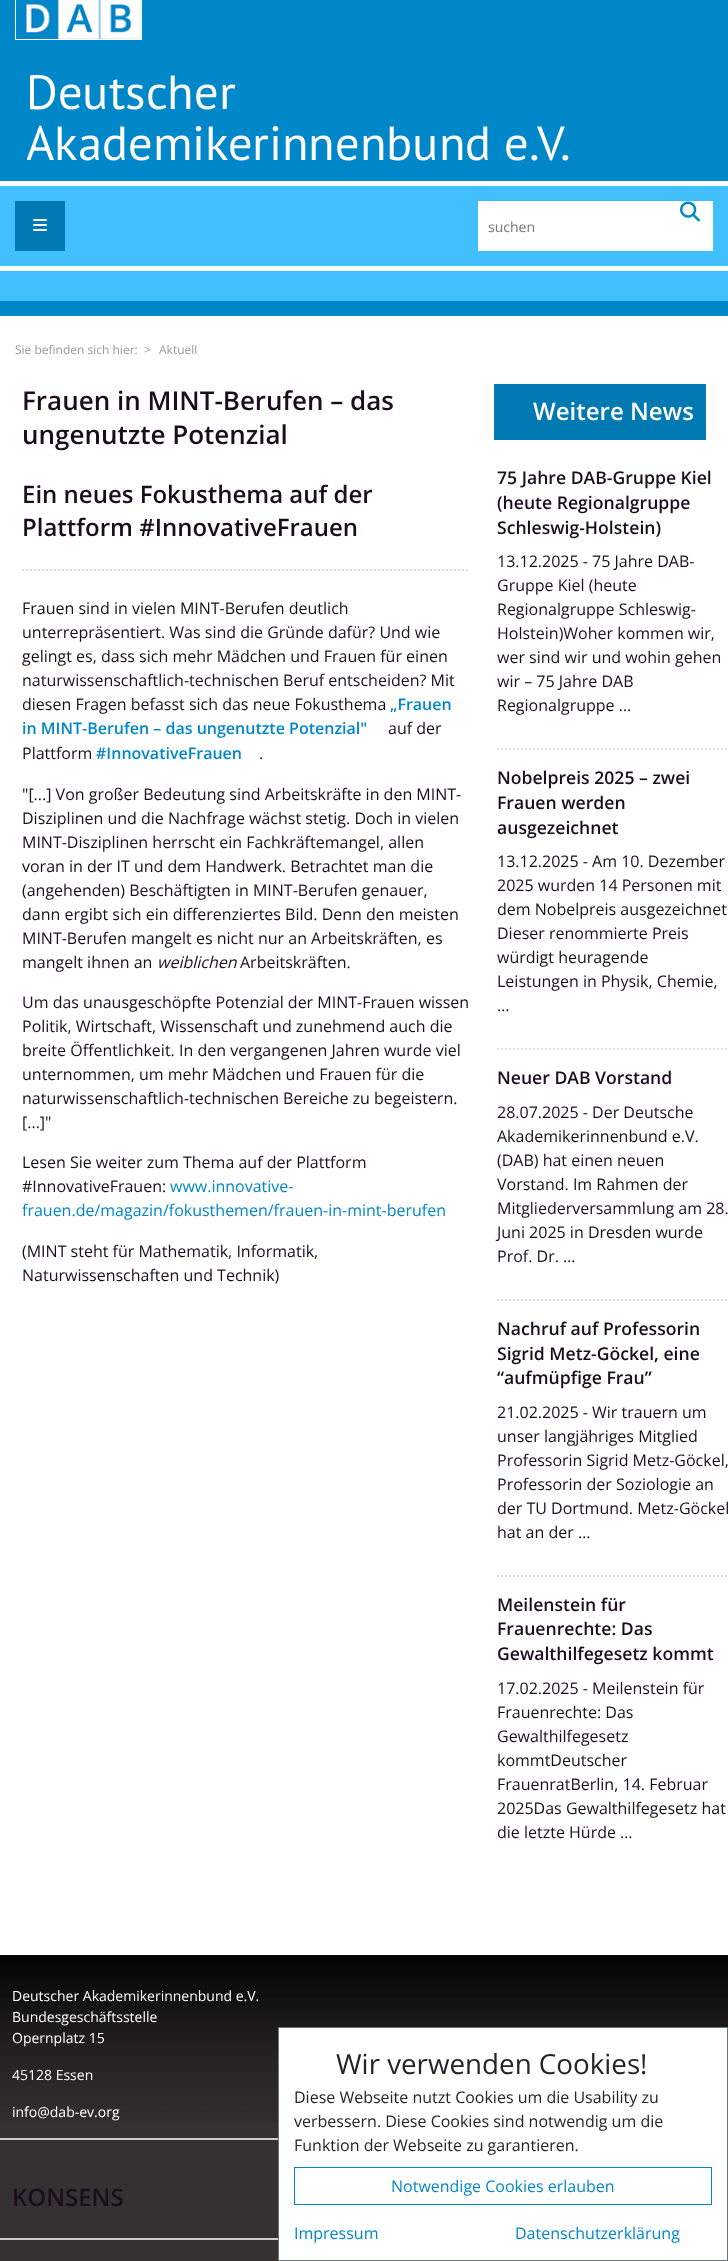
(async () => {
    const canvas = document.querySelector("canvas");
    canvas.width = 728;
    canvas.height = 2261;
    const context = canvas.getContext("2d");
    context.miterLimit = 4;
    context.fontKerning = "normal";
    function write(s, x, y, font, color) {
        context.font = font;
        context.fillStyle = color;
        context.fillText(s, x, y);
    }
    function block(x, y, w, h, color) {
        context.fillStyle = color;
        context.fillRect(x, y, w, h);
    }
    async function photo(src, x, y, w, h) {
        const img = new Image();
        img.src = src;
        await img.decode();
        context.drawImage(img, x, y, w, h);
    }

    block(0, 0, 728, 2261, "rgb(255, 255, 255)");
    block(0, 0, 728, 316, "rgb(0, 135, 201)");
    context.strokeStyle = "rgb(255, 255, 255)";
    context.strokeRect(15.5, -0.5, 126, 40);
    await photo("media/1.png", 25, 0, 116, 39);
    await photo("media/2.png", 27, 75, 542, 86);
    block(0, 186, 728, 80, "rgb(66, 191, 253)");
    block(0, 181, 728, 5, "rgb(255, 255, 255)");
    block(15, 201, 50, 50, "rgb(1, 121, 178)");
    await photo("media/3.png", 33, 219, 14, 12);
    block(478, 201, 235, 50, "rgb(255, 255, 255)");
    await photo("media/4.png", 680, 201, 20, 21);
    write("suchen", 488, 232, "14px Open Sans", "rgb(117, 117, 117)");
    block(0, 271, 728, 30, "rgb(66, 191, 253)");
    block(0, 266, 728, 5, "rgb(255, 255, 255)");
    write("Sie befinden sich hier:", 15, 354, "12px Open Sans", "rgb(153, 153, 153)");
    write(">", 144, 354, "12px Open Sans", "rgb(153, 153, 153)");
    write("Aktuell", 159, 354, "12px Open Sans", "rgb(153, 153, 153)");
    context.beginPath();
    context.moveTo(22, 570);
    context.lineTo(470, 570);
    context.strokeStyle = "rgb(221, 221, 221)";
    context.lineWidth = 2;
    context.setLineDash([2, 2]);
    context.stroke();
    write("Frauen in MINT-Berufen – das", 22, 410, "600 26px Open Sans", "rgb(27, 13, 30)");
    write("ungenutzte Potenzial", 22, 444, "600 26px Open Sans", "rgb(27, 13, 30)");
    write("Ein neues Fokusthema auf der", 22, 503, "600 24px Open Sans", "rgb(27, 13, 30)");
    write("Plattform #InnovativeFrauen", 22, 536, "600 24px Open Sans", "rgb(27, 13, 30)");
    write("Frauen sind in vielen MINT-Berufen deutlich", 22, 614, "16px Open Sans", "rgb(27, 13, 30)");
    write("unterrepräsentiert. Was sind die Gründe dafür? Und wie", 22, 638, "16px Open Sans", "rgb(27, 13, 30)");
    write("gelingt es, dass sich mehr Mädchen und Frauen für einen", 22, 662, "16px Open Sans", "rgb(27, 13, 30)");
    write("naturwissenschaftlich-technischen Beruf entscheiden? Mit", 22, 686, "16px Open Sans", "rgb(27, 13, 30)");
    write("diesen Fragen befasst sich das neue Fokusthema", 22, 710, "16px Open Sans", "rgb(27, 13, 30)");
    write("„Frauen", 390, 710, "600 16px Open Sans", "rgb(0, 135, 201)");
    write("in MINT-Berufen – das ungenutzte Potenzial\"", 22, 734, "600 16px Open Sans", "rgb(0, 135, 201)");
    write("auf der", 388, 734, "16px Open Sans", "rgb(27, 13, 30)");
    write("Plattform", 22, 759, "16px Open Sans", "rgb(27, 13, 30)");
    write("#InnovativeFrauen", 96, 759, "600 16px Open Sans", "rgb(0, 135, 201)");
    write(".", 259, 759, "16px Open Sans", "rgb(27, 13, 30)");
    write("\"[...] Von großer Bedeutung sind Arbeitskräfte in den MINT-", 22, 800, "16px Open Sans", "rgb(27, 13, 30)");
    write("Disziplinen und die Nachfrage wächst stetig. Doch in vielen", 22, 824, "16px Open Sans", "rgb(27, 13, 30)");
    write("MINT-Disziplinen herrscht ein Fachkräftemangel, allen", 22, 848, "16px Open Sans", "rgb(27, 13, 30)");
    write("voran in der IT und dem Handwerk. Betrachtet man die", 22, 872, "16px Open Sans", "rgb(27, 13, 30)");
    write("(angehenden) Beschäftigten in MINT-Berufen genauer,", 22, 896, "16px Open Sans", "rgb(27, 13, 30)");
    write("dann ergibt sich ein differenziertes Bild. Denn den meisten", 22, 920, "16px Open Sans", "rgb(27, 13, 30)");
    write("MINT-Berufen mangelt es nicht nur an Arbeitskräften, es", 22, 944, "16px Open Sans", "rgb(27, 13, 30)");
    write("mangelt ihnen an", 22, 968, "16px Open Sans", "rgb(27, 13, 30)");
    write("weiblichen", 157, 968, "italic 16px Open Sans", "rgb(27, 13, 30)");
    write("Arbeitskräften.", 240, 968, "16px Open Sans", "rgb(27, 13, 30)");
    write("Um das unausgeschöpfte Potenzial der MINT-Frauen wissen", 22, 1008, "16px Open Sans", "rgb(27, 13, 30)");
    write("Politik, Wirtschaft, Wissenschaft und zunehmend auch die", 22, 1032, "16px Open Sans", "rgb(27, 13, 30)");
    write("breite Öffentlichkeit. In den vergangenen Jahren wurde viel", 22, 1056, "16px Open Sans", "rgb(27, 13, 30)");
    write("unternommen, um mehr Mädchen und Frauen für die", 22, 1080, "16px Open Sans", "rgb(27, 13, 30)");
    write("naturwissenschaftlich-technischen Bereiche zu begeistern.", 22, 1104, "16px Open Sans", "rgb(27, 13, 30)");
    write("[...]\"", 22, 1128, "16px Open Sans", "rgb(27, 13, 30)");
    write("Lesen Sie weiter zum Thema auf der Plattform", 22, 1168, "16px Open Sans", "rgb(27, 13, 30)");
    write("#InnovativeFrauen:", 22, 1192, "16px Open Sans", "rgb(27, 13, 30)");
    write("www.innovative-", 170, 1192, "16px Open Sans", "rgb(0, 135, 201)");
    write("frauen.de/magazin/fokusthemen/frauen-in-mint-berufen", 22, 1216, "16px Open Sans", "rgb(0, 135, 201)");
    write("(MINT steht für Mathematik, Informatik,", 22, 1257, "16px Open Sans", "rgb(27, 13, 30)");
    write("Naturwissenschaften und Technik)", 22, 1281, "16px Open Sans", "rgb(27, 13, 30)");
    block(494, 384, 212, 56, "rgb(1, 121, 178)");
    write("Weitere News", 533, 420, "600 24px Open Sans", "rgb(255, 255, 255)");
    context.beginPath();
    context.moveTo(497, 749);
    context.lineTo(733, 749);
    context.stroke();
    write("75 Jahre DAB-Gruppe Kiel", 497, 484, "600 17.6px Open Sans", "rgb(27, 13, 30)");
    write("(heute Regionalgruppe", 497, 509, "600 17.6px Open Sans", "rgb(27, 13, 30)");
    write("Schleswig-Holstein)", 497, 534, "600 17.6px Open Sans", "rgb(27, 13, 30)");
    write("13.12.2025 - 75 Jahre DAB-", 497, 567, "16px Open Sans", "rgb(27, 13, 30)");
    write("Gruppe Kiel (heute", 497, 591, "16px Open Sans", "rgb(27, 13, 30)");
    write("Regionalgruppe Schleswig-", 497, 615, "16px Open Sans", "rgb(27, 13, 30)");
    write("Holstein)Woher kommen wir,", 497, 639, "16px Open Sans", "rgb(27, 13, 30)");
    write("wer sind wir und wohin gehen", 497, 663, "16px Open Sans", "rgb(27, 13, 30)");
    write("wir – 75 Jahre DAB", 497, 687, "16px Open Sans", "rgb(27, 13, 30)");
    write("Regionalgruppe …", 497, 711, "16px Open Sans", "rgb(27, 13, 30)");
    context.beginPath();
    context.moveTo(497, 1049);
    context.lineTo(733, 1049);
    context.stroke();
    write("Nobelpreis 2025 – zwei", 497, 784, "600 17.6px Open Sans", "rgb(27, 13, 30)");
    write("Frauen werden", 497, 809, "600 17.6px Open Sans", "rgb(27, 13, 30)");
    write("ausgezeichnet", 497, 834, "600 17.6px Open Sans", "rgb(27, 13, 30)");
    write("13.12.2025 - Am 10. Dezember", 497, 867, "16px Open Sans", "rgb(27, 13, 30)");
    write("2025 wurden 14 Personen mit", 497, 891, "16px Open Sans", "rgb(27, 13, 30)");
    write("dem Nobelpreis ausgezeichnet", 497, 915, "16px Open Sans", "rgb(27, 13, 30)");
    write("Dieser renommierte Preis", 497, 939, "16px Open Sans", "rgb(27, 13, 30)");
    write("würdigt heuragende", 497, 963, "16px Open Sans", "rgb(27, 13, 30)");
    write("Leistungen in Physik, Chemie,", 497, 987, "16px Open Sans", "rgb(27, 13, 30)");
    write("…", 497, 1011, "16px Open Sans", "rgb(27, 13, 30)");
    context.beginPath();
    context.moveTo(497, 1300);
    context.lineTo(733, 1300);
    context.stroke();
    write("Neuer DAB Vorstand", 497, 1084, "600 17.6px Open Sans", "rgb(27, 13, 30)");
    write("28.07.2025 - Der Deutsche", 497, 1118, "16px Open Sans", "rgb(27, 13, 30)");
    write("Akademikerinnenbund e.V.", 497, 1142, "16px Open Sans", "rgb(27, 13, 30)");
    write("(DAB) hat einen neuen", 497, 1166, "16px Open Sans", "rgb(27, 13, 30)");
    write("Vorstand. Im Rahmen der", 497, 1190, "16px Open Sans", "rgb(27, 13, 30)");
    write("Mitgliederversammlung am 28.", 497, 1214, "16px Open Sans", "rgb(27, 13, 30)");
    write("Juni 2025 in Dresden wurde", 497, 1238, "16px Open Sans", "rgb(27, 13, 30)");
    write("Prof. Dr. …", 497, 1262, "16px Open Sans", "rgb(27, 13, 30)");
    context.beginPath();
    context.moveTo(497, 1576);
    context.lineTo(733, 1576);
    context.stroke();
    write("Nachruf auf Professorin", 497, 1335, "600 17.6px Open Sans", "rgb(27, 13, 30)");
    write("Sigrid Metz-Göckel, eine", 497, 1360, "600 17.6px Open Sans", "rgb(27, 13, 30)");
    write("“aufmüpfige Frau”", 497, 1384, "600 17.6px Open Sans", "rgb(27, 13, 30)");
    write("21.02.2025 - Wir trauern um", 497, 1418, "16px Open Sans", "rgb(27, 13, 30)");
    write("unser langjähriges Mitglied", 497, 1442, "16px Open Sans", "rgb(27, 13, 30)");
    write("Professorin Sigrid Metz-Göckel,", 497, 1466, "16px Open Sans", "rgb(27, 13, 30)");
    write("Professorin der Soziologie an", 497, 1490, "16px Open Sans", "rgb(27, 13, 30)");
    write("der TU Dortmund. Metz-Göckel", 497, 1514, "16px Open Sans", "rgb(27, 13, 30)");
    write("hat an der …", 497, 1538, "16px Open Sans", "rgb(27, 13, 30)");
    write("Meilenstein für", 497, 1611, "600 17.6px Open Sans", "rgb(27, 13, 30)");
    write("Frauenrechte: Das", 497, 1635, "600 17.6px Open Sans", "rgb(27, 13, 30)");
    write("Gewalthilfegesetz kommt", 497, 1660, "600 17.6px Open Sans", "rgb(27, 13, 30)");
    write("17.02.2025 - Meilenstein für", 497, 1694, "16px Open Sans", "rgb(27, 13, 30)");
    write("Frauenrechte: Das", 497, 1718, "16px Open Sans", "rgb(27, 13, 30)");
    write("Gewalthilfegesetz", 497, 1742, "16px Open Sans", "rgb(27, 13, 30)");
    write("kommtDeutscher", 497, 1766, "16px Open Sans", "rgb(27, 13, 30)");
    write("FrauenratBerlin, 14. Februar", 497, 1790, "16px Open Sans", "rgb(27, 13, 30)");
    write("2025Das Gewalthilfegesetz hat", 497, 1814, "16px Open Sans", "rgb(27, 13, 30)");
    write("die letzte Hürde …", 497, 1838, "16px Open Sans", "rgb(27, 13, 30)");
    block(0, 1955, 728, 306, "rgb(53, 48, 49)");
    await photo("media/5.png", 0, 1955, 728, 167);
    write("Deutscher Akademikerinnenbund e.V.", 12, 2001, "14px Open Sans", "rgb(255, 255, 255)");
    write("Bundesgeschäftsstelle", 12, 2022, "14px Open Sans", "rgb(255, 255, 255)");
    write("Opernplatz 15", 12, 2043, "14px Open Sans", "rgb(255, 255, 255)");
    write("45128 Essen", 12, 2080, "14px Open Sans", "rgb(255, 255, 255)");
    write("info@dab-ev.org", 12, 2117, "14px Open Sans", "rgb(255, 255, 255)");
    block(0, 2138, 278, 2, "rgb(204, 204, 204)");
    write("KONSENS", 12, 2206, "600 24px Open Sans", "rgb(27, 13, 30)");
    block(0, 2238, 278, 2, "rgb(204, 204, 204)");
    context.fillStyle = "rgb(255, 255, 255)";
    context.beginPath();
    context.rect(278.5, 2027.5, 449, 233);
    context.fill();
    context.strokeStyle = "rgb(108, 117, 125)";
    context.lineWidth = 1;
    context.setLineDash([]);
    context.stroke();
    write("Wir verwenden Cookies!", 336, 2074, "27.75px Open Sans", "rgb(33, 37, 41)");
    write("Diese Webseite nutzt Cookies um die Usability zu", 294, 2103, "16px Open Sans", "rgb(33, 37, 41)");
    write("verbessern. Diese Cookies sind notwendig um die", 294, 2127, "16px Open Sans", "rgb(33, 37, 41)");
    write("Funktion der Webseite zu garantieren.", 294, 2151, "16px Open Sans", "rgb(33, 37, 41)");
    context.strokeStyle = "rgb(0, 135, 201)";
    context.strokeRect(294.5, 2167.5, 417, 37);
    write("Notwendige Cookies erlauben", 391, 2192, "16px Open Sans", "rgb(0, 135, 201)");
    write("Impressum", 294, 2239, "16px Open Sans", "rgb(0, 135, 201)");
    write("Datenschutzerklärung", 515, 2239, "16px Open Sans", "rgb(0, 135, 201)");
})();
